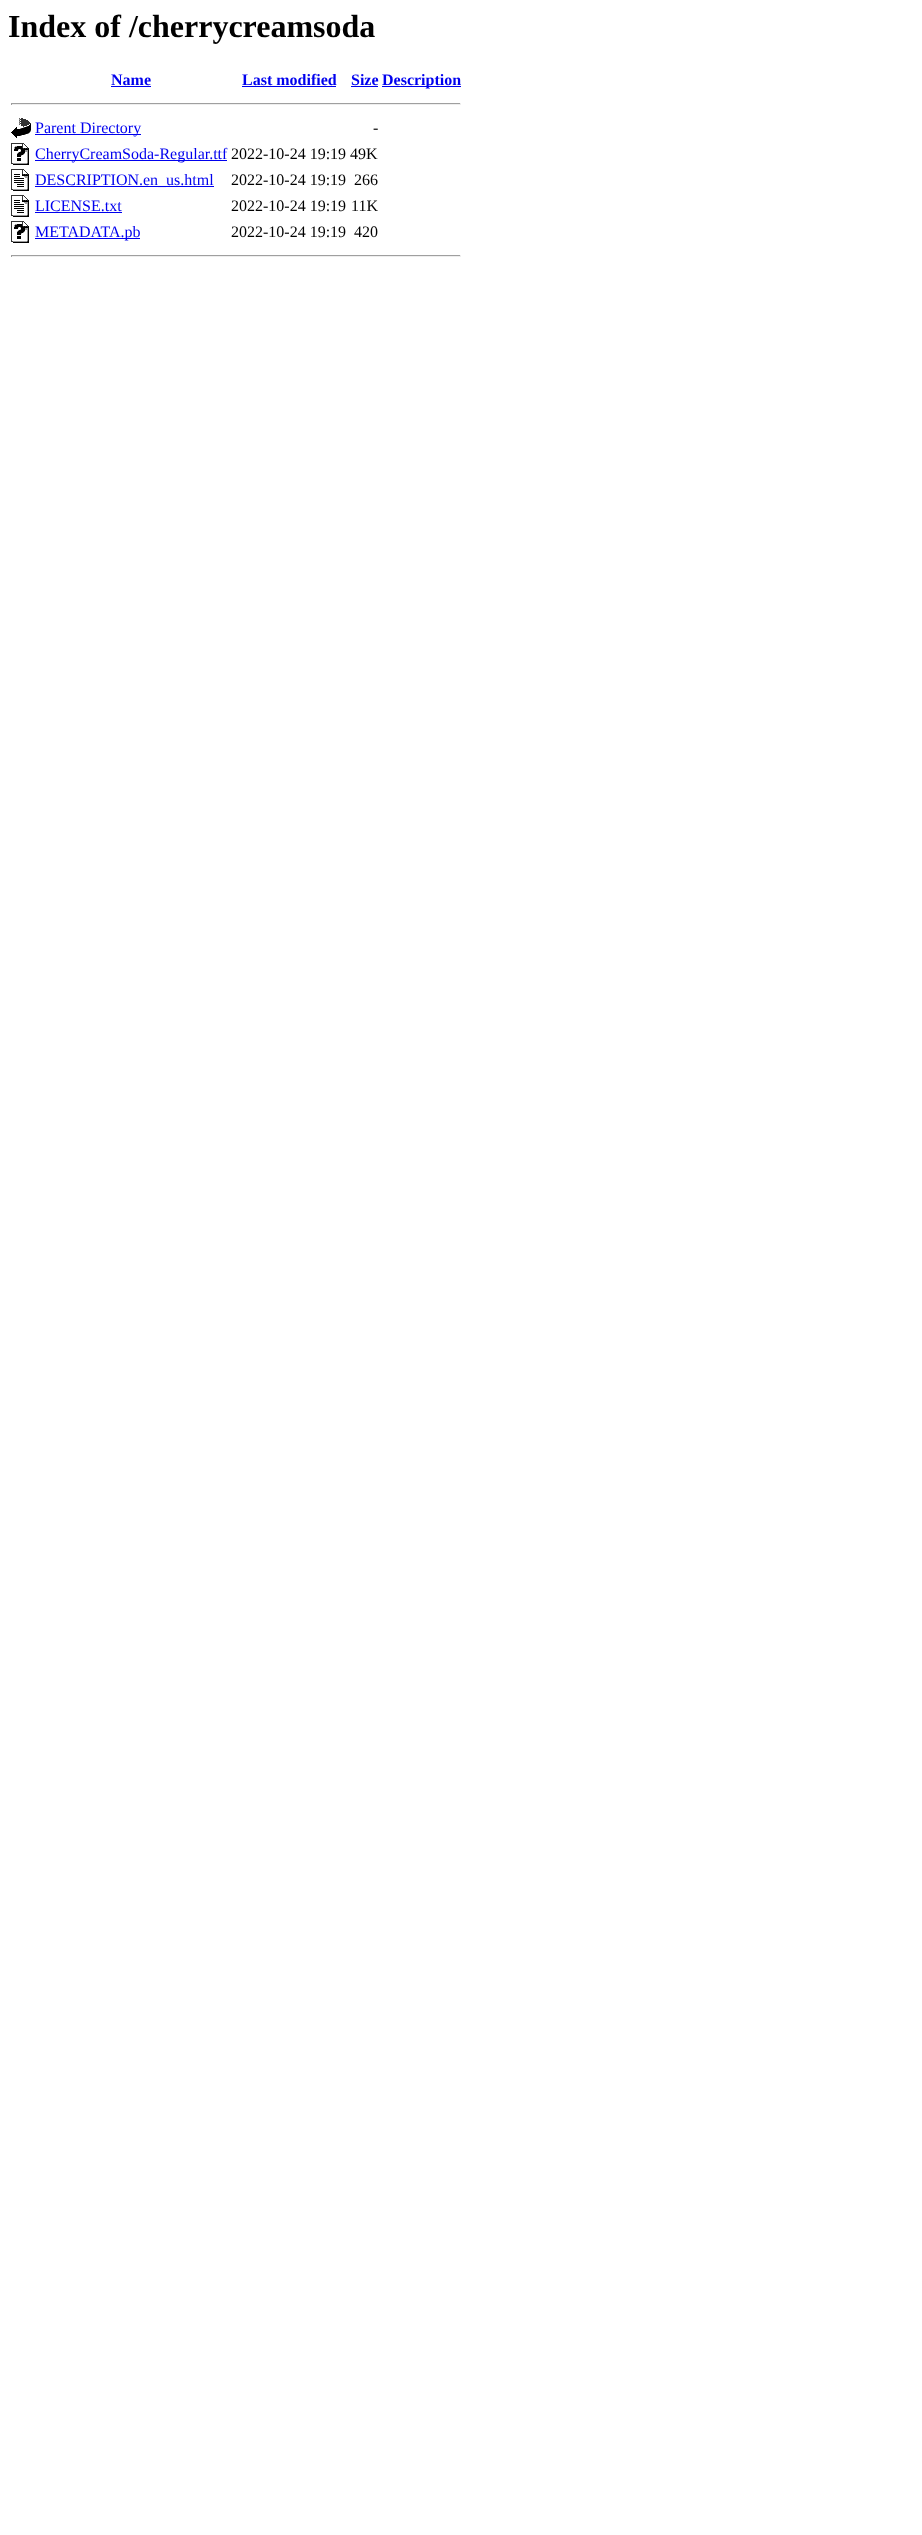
(async () => {
    const canvas = document.querySelector("canvas");
    canvas.width = 922;
    canvas.height = 2535;
    const context = canvas.getContext("2d");
    context.miterLimit = 4;
    context.fontKerning = "normal";
    function write(s, x, y, font, color) {
        context.font = font;
        context.fillStyle = color;
        context.fillText(s, x, y);
    }
    function block(x, y, w, h, color) {
        context.fillStyle = color;
        context.fillRect(x, y, w, h);
    }
    async function photo(src, x, y, w, h) {
        const img = new Image();
        img.src = src;
        await img.decode();
        context.drawImage(img, x, y, w, h);
    }

    block(0, 0, 922, 2535, "rgb(255, 255, 255)");
    write("Index of /cherrycreamsoda", 8, 37, "bold 32px Liberation Serif", "rgb(0, 0, 0)");
    write("Name", 111, 85, "bold 16px Liberation Serif", "rgb(0, 0, 238)");
    block(111, 86, 40, 1, "rgb(0, 0, 238)");
    write("Last modified", 242, 85, "bold 16px Liberation Serif", "rgb(0, 0, 238)");
    block(242, 86, 94, 1, "rgb(0, 0, 238)");
    write("Size", 351, 85, "bold 16px Liberation Serif", "rgb(0, 0, 238)");
    block(351, 86, 27, 1, "rgb(0, 0, 238)");
    block(382, 86, 79, 1, "rgb(0, 0, 238)");
    write("Description", 382, 85, "bold 16px Liberation Serif", "rgb(0, 0, 238)");
    block(11, 103, 450, 1, "rgb(159, 159, 159)");
    block(460, 103, 1, 2, "rgb(238, 238, 238)");
    block(11, 104, 450, 1, "rgb(238, 238, 238)");
    block(11, 103, 1, 2, "rgb(159, 159, 159)");
    await photo("media/1.png", 11, 118, 20, 20);
    block(35, 134, 106, 1, "rgb(0, 0, 238)");
    write("Parent Directory", 35, 133, "16px Liberation Serif", "rgb(0, 0, 238)");
    write("-", 373, 133, "16px Liberation Serif", "rgb(0, 0, 0)");
    await photo("media/2.png", 11, 143, 18, 22);
    block(35, 160, 192, 1, "rgb(0, 0, 238)");
    write("CherryCreamSoda-Regular.ttf", 35, 159, "16px Liberation Serif", "rgb(0, 0, 238)");
    write("2022-10-24 19:19 49K", 231, 159, "16px Liberation Serif", "rgb(0, 0, 0)");
    await photo("media/3.png", 11, 169, 18, 22);
    block(35, 186, 179, 1, "rgb(0, 0, 238)");
    write("DESCRIPTION.en_us.html", 35, 185, "16px Liberation Serif", "rgb(0, 0, 238)");
    write("2022-10-24 19:19", 231, 185, "16px Liberation Serif", "rgb(0, 0, 0)");
    write("266", 354, 185, "16px Liberation Serif", "rgb(0, 0, 0)");
    await photo("media/3.png", 11, 195, 18, 22);
    write("LICENSE.txt", 35, 211, "16px Liberation Serif", "rgb(0, 0, 238)");
    block(35, 212, 87, 1, "rgb(0, 0, 238)");
    write("2022-10-24 19:19", 231, 211, "16px Liberation Serif", "rgb(0, 0, 0)");
    write("11K", 351, 211, "16px Liberation Serif", "rgb(0, 0, 0)");
    await photo("media/2.png", 11, 221, 18, 22);
    block(35, 238, 105, 1, "rgb(0, 0, 238)");
    write("METADATA.pb", 35, 237, "16px Liberation Serif", "rgb(0, 0, 238)");
    write("2022-10-24 19:19", 231, 237, "16px Liberation Serif", "rgb(0, 0, 0)");
    write("420", 354, 237, "16px Liberation Serif", "rgb(0, 0, 0)");
    block(11, 255, 450, 1, "rgb(159, 159, 159)");
    block(460, 255, 1, 2, "rgb(238, 238, 238)");
    block(11, 256, 450, 1, "rgb(238, 238, 238)");
    block(11, 255, 1, 2, "rgb(159, 159, 159)");
})();
